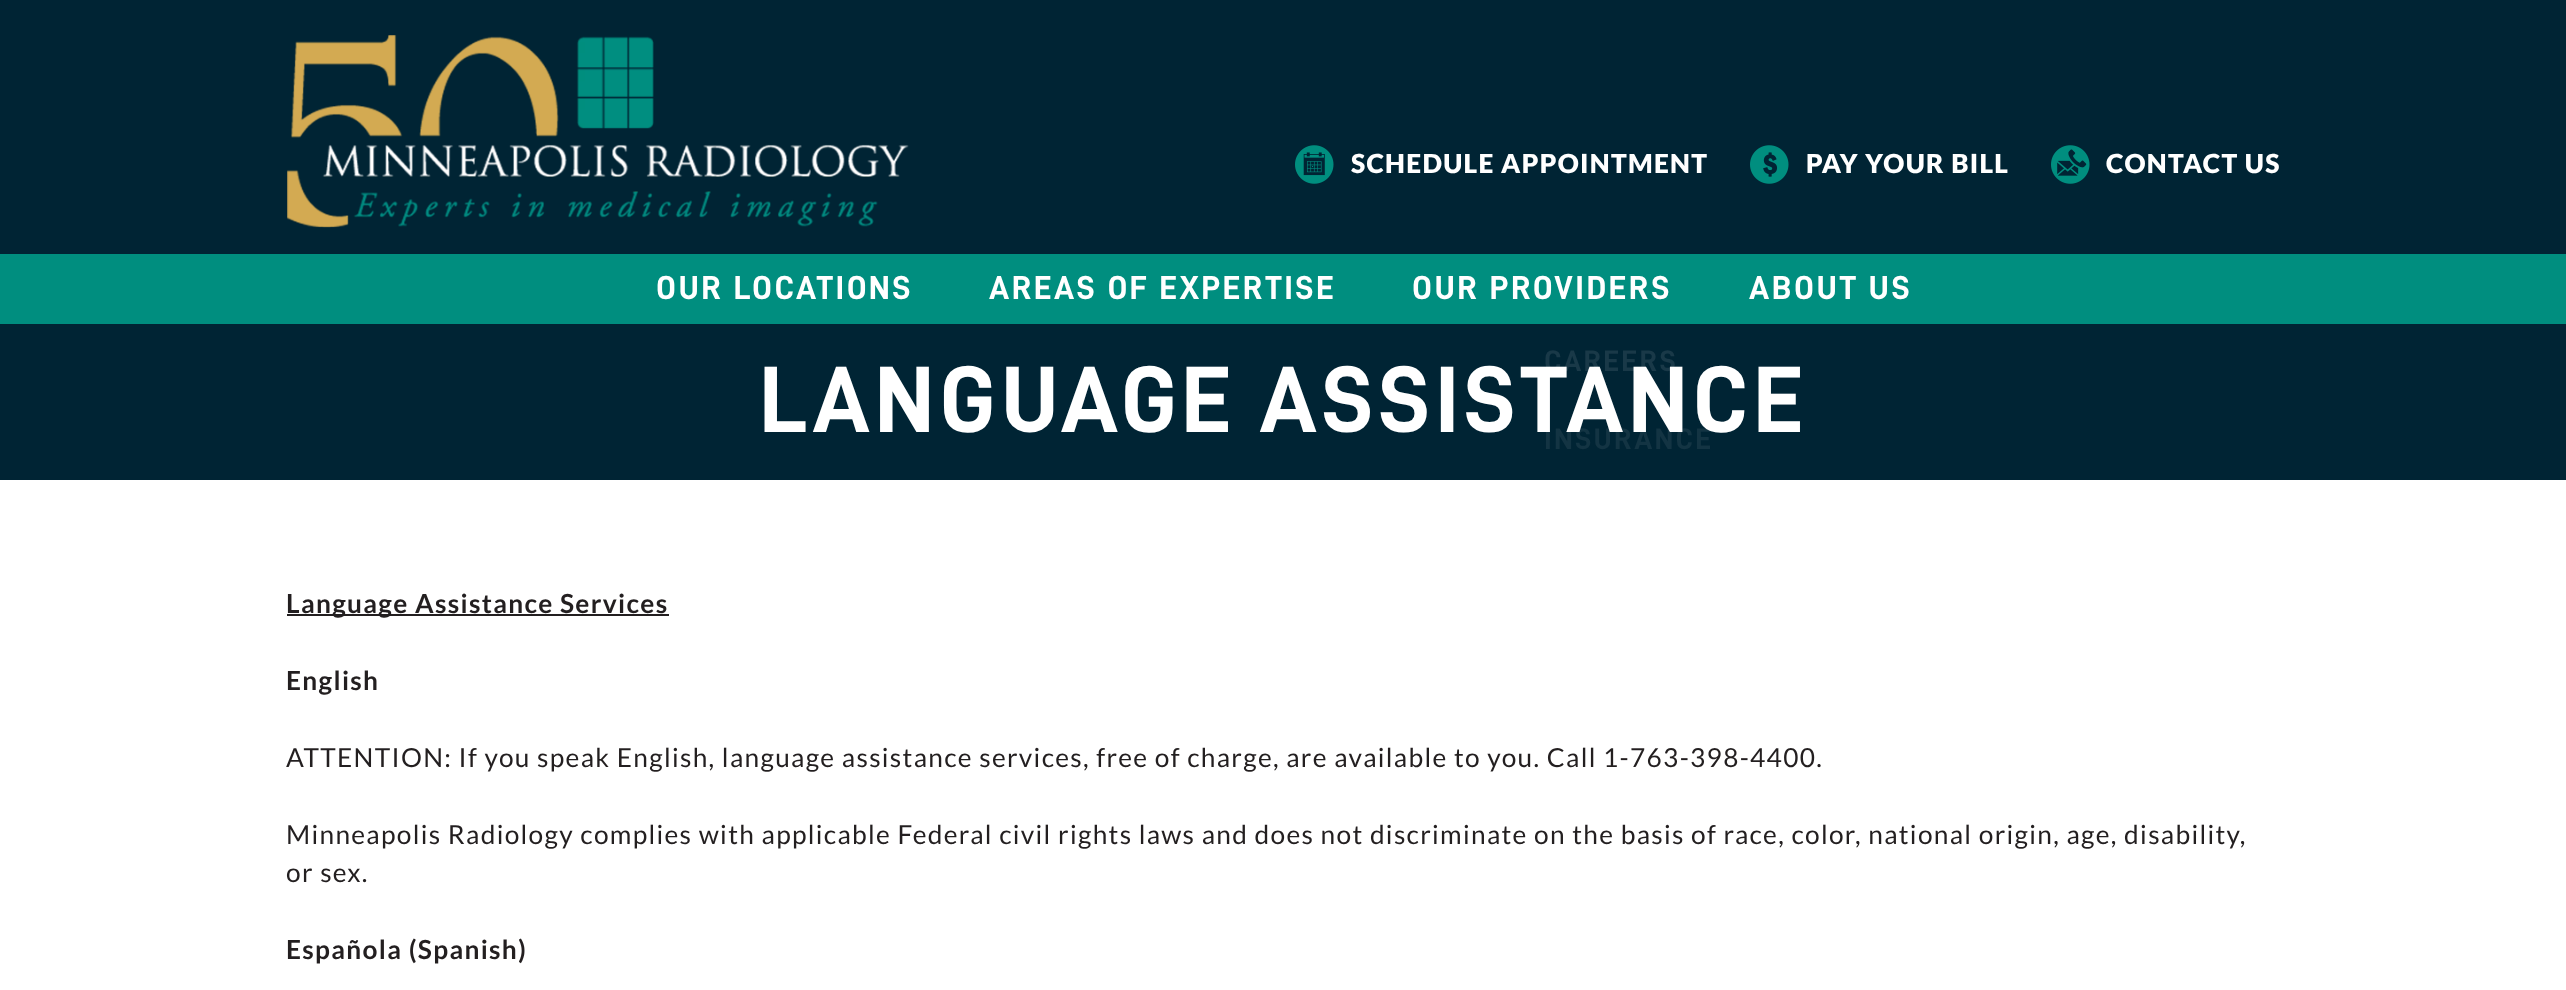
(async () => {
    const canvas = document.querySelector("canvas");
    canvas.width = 2566;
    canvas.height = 990;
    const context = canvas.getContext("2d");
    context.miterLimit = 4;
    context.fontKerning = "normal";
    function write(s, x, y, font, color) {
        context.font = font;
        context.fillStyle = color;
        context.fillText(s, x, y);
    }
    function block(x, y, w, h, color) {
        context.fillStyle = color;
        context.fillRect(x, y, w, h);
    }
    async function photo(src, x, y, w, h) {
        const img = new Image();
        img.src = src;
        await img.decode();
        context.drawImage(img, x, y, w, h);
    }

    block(0, 0, 2566, 990, "rgb(255, 255, 255)");
    block(0, 0, 2566, 254, "rgb(0, 36, 52)");
    await photo("media/1.png", 287, 35, 622, 193);
    await photo("media/2.png", 1295, 145, 39, 39);
    context.letterSpacing = "1.31px";
    write("SCHEDULE APPOINTMENT", 1351, 173, "900 26.25px Lato", "rgb(255, 255, 255)");
    await photo("media/3.png", 1750, 145, 39, 39);
    write("PAY YOUR BILL", 1806, 173, "900 26.25px Lato", "rgb(255, 255, 255)");
    await photo("media/4.png", 2051, 145, 39, 39);
    write("CONTACT US", 2106, 173, "900 26.25px Lato", "rgb(255, 255, 255)");
    block(0, 254, 2566, 70, "rgb(0, 142, 127)");
    context.letterSpacing = "2.5px";
    write("OUR LOCATIONS", 656, 299, "bold 33.25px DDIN", "rgb(255, 255, 255)");
    write("AREAS OF EXPERTISE", 989, 299, "bold 33.25px DDIN", "rgb(255, 255, 255)");
    write("OUR PROVIDERS", 1412, 299, "bold 33.25px DDIN", "rgb(255, 255, 255)");
    write("ABOUT US", 1749, 299, "bold 33.25px DDIN", "rgb(255, 255, 255)");
    block(0, 324, 2566, 156, "rgb(0, 36, 52)");
    context.letterSpacing = "2.25px";
    write("CAREERS", 1544, 371, "bold 29.75px DDIN", "rgb(25, 57, 72)");
    write("INSURANCE", 1544, 449, "bold 29.75px DDIN", "rgb(19, 52, 67)");
    context.letterSpacing = "4.75px";
    write("LANGUAGE ASSISTANCE", 759, 432, "bold 94.5px DDIN", "rgb(255, 255, 255)");
    block(287, 614, 382, 2, "rgb(35, 31, 32)");
    context.letterSpacing = "1.31px";
    write("Language Assistance Services", 286, 613, "bold 26.25px Lato", "rgb(35, 31, 32)");
    write("English", 286, 690, "bold 26.25px Lato", "rgb(35, 31, 32)");
    write("ATTENTION: If you speak English, language assistance services, free of charge, are available to you. Call 1-763-398-4400.", 286, 767, "26.25px Lato", "rgb(35, 31, 32)");
    write("Minneapolis Radiology complies with applicable Federal civil rights laws and does not discriminate on the basis of race, color, national origin, age, disability,", 286, 844, "26.25px Lato", "rgb(35, 31, 32)");
    write("or sex.", 286, 882, "26.25px Lato", "rgb(35, 31, 32)");
    write("Española (Spanish)", 286, 959, "bold 26.25px Lato", "rgb(35, 31, 32)");
})();
